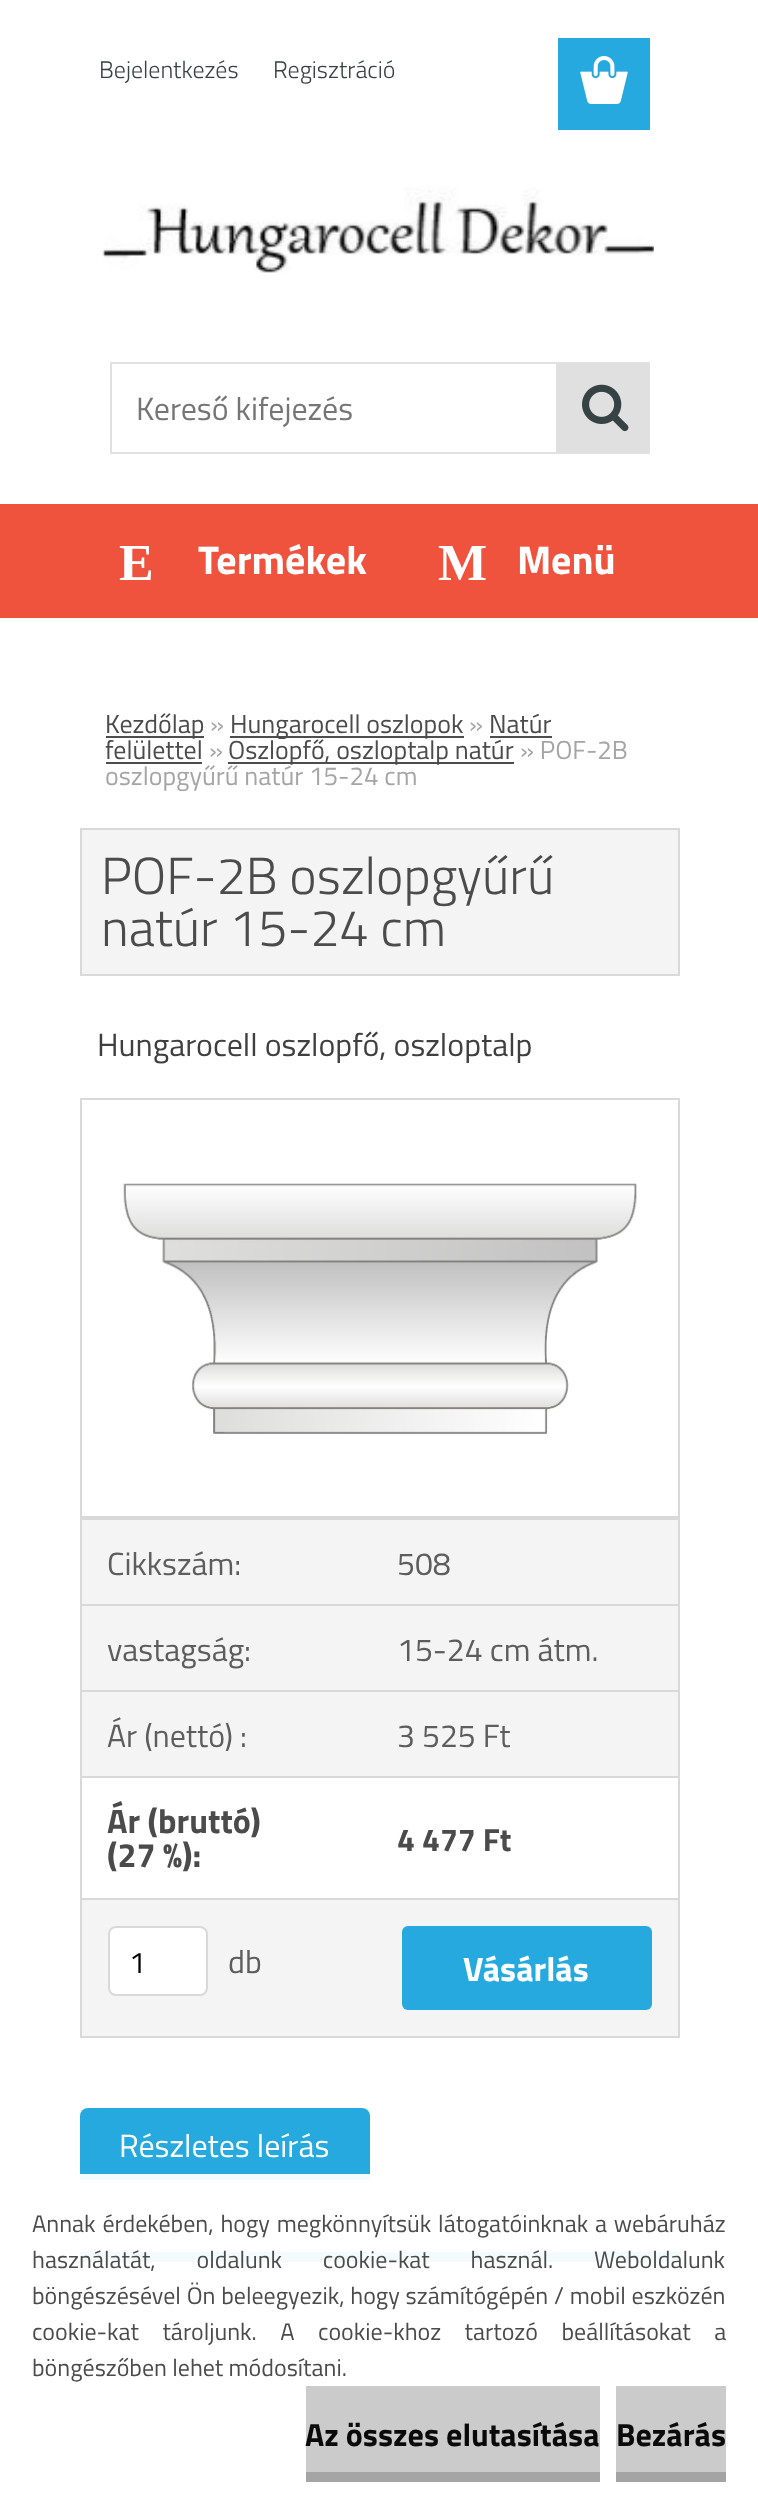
(async () => {
    const canvas = document.querySelector("canvas");
    canvas.width = 758;
    canvas.height = 2513;
    const context = canvas.getContext("2d");
    context.miterLimit = 4;
    context.fontKerning = "normal";
    function write(s, x, y, font, color) {
        context.font = font;
        context.fillStyle = color;
        context.fillText(s, x, y);
    }
    function block(x, y, w, h, color) {
        context.fillStyle = color;
        context.fillRect(x, y, w, h);
    }
    function card(x, y, w, h, r, color) {
        context.fillStyle = color;
        context.beginPath();
        context.roundRect(x, y, w, h, r);
        context.fill();
    }
    async function photo(src, x, y, w, h) {
        const img = new Image();
        img.src = src;
        await img.decode();
        context.drawImage(img, x, y, w, h);
    }

    block(0, 0, 758, 2513, "rgb(255, 255, 255)");
    block(228, 762, 286, 2, "rgb(77, 77, 77)");
    block(106, 762, 96, 2, "rgb(77, 77, 77)");
    block(490, 736, 62, 2, "rgb(77, 77, 77)");
    block(230, 736, 234, 2, "rgb(77, 77, 77)");
    block(106, 736, 98, 2, "rgb(77, 77, 77)");
    write("Bejelentkezés", 99, 78, "300 24px Titillium Web", "rgb(55, 66, 68)");
    write("Regisztráció", 273, 78, "300 24px Titillium Web", "rgb(55, 66, 68)");
    block(558, 38, 92, 92, "rgb(38, 169, 223)");
    await photo("media/1.png", 580, 56, 48, 48);
    block(0, 504, 758, 114, "rgb(239, 83, 62)");
    write("E", 119, 580, "bold 52px Liberation Serif", "rgb(255, 255, 255)");
    write("Termékek", 198, 574, "bold 40px Titillium Web", "rgb(255, 255, 255)");
    write("M", 438, 580, "bold 52px Liberation Serif", "rgb(255, 255, 255)");
    write("Menü", 517, 574, "bold 40px Titillium Web", "rgb(255, 255, 255)");
    write("Kezdőlap", 105, 733, "26px Titillium Web", "rgb(75, 75, 75)");
    write("»", 210, 733, "26px Titillium Web", "rgb(165, 165, 165)");
    write("Hungarocell oszlopok", 230, 733, "26px Titillium Web", "rgb(75, 75, 75)");
    write("»", 469, 733, "26px Titillium Web", "rgb(165, 165, 165)");
    write("Natúr", 489, 733, "26px Titillium Web", "rgb(75, 75, 75)");
    write("felülettel", 105, 759, "26px Titillium Web", "rgb(75, 75, 75)");
    write("»", 209, 759, "26px Titillium Web", "rgb(165, 165, 165)");
    write("Oszlopfő, oszloptalp natúr", 228, 759, "26px Titillium Web", "rgb(75, 75, 75)");
    write("» POF-2B", 520, 759, "26px Titillium Web", "rgb(165, 165, 165)");
    write("oszlopgyűrű natúr 15-24 cm", 105, 785, "26px Titillium Web", "rgb(165, 165, 165)");
    context.fillStyle = "rgb(244, 244, 244)";
    context.beginPath();
    context.rect(81, 829, 598, 146);
    context.fill();
    context.strokeStyle = "rgb(217, 217, 217)";
    context.lineWidth = 2;
    context.stroke();
    write("POF-2B oszlopgyűrű", 101, 894, "300 52px Titillium Web", "rgb(75, 75, 75)");
    write("natúr 15-24 cm", 101, 946, "300 52px Titillium Web", "rgb(75, 75, 75)");
    write("Hungarocell oszlopfő, oszloptalp", 97, 1056, "32px Titillium Web", "rgb(63, 63, 63)");
    context.strokeRect(81, 1099, 598, 418);
    await photo("media/2.png", 123, 1183, 514, 252);
    block(80, 1518, 600, 2, "rgb(217, 217, 217)");
    block(678, 1518, 2, 520, "rgb(217, 217, 217)");
    block(80, 2036, 600, 2, "rgb(217, 217, 217)");
    block(80, 1518, 2, 520, "rgb(217, 217, 217)");
    block(82, 1520, 596, 84, "rgb(244, 244, 244)");
    write("Cikkszám:", 107, 1575, "32px Titillium Web", "rgb(93, 93, 93)");
    write("508", 397, 1575, "32px Titillium Web", "rgb(93, 93, 93)");
    block(82, 1606, 596, 84, "rgb(244, 244, 244)");
    block(80, 1604, 600, 2, "rgb(217, 217, 217)");
    write("vastagság:", 107, 1661, "32px Titillium Web", "rgb(93, 93, 93)");
    write("15-24 cm átm.", 397, 1661, "32px Titillium Web", "rgb(93, 93, 93)");
    block(82, 1692, 596, 84, "rgb(244, 244, 244)");
    block(80, 1690, 600, 2, "rgb(217, 217, 217)");
    write("Ár (nettó) :", 107, 1747, "32px Titillium Web", "rgb(93, 93, 93)");
    write("3 525 Ft", 397, 1747, "32px Titillium Web", "rgb(93, 93, 93)");
    block(80, 1776, 600, 2, "rgb(217, 217, 217)");
    write("Ár (bruttó)", 107, 1833, "bold 34px Titillium Web", "rgb(75, 75, 75)");
    write("(27 %):", 107, 1867, "bold 34px Titillium Web", "rgb(75, 75, 75)");
    write("4 477 Ft", 397, 1851, "bold 32px Titillium Web", "rgb(75, 75, 75)");
    block(82, 1900, 596, 136, "rgb(244, 244, 244)");
    block(80, 1898, 600, 2, "rgb(217, 217, 217)");
    context.fillStyle = "rgb(255, 255, 255)";
    context.beginPath();
    context.roundRect(109, 1927, 98, 68, 7);
    context.fill();
    context.stroke();
    write("1", 129, 1973, "30px Titillium Web", "rgb(0, 0, 0)");
    write("db", 228, 1973, "32px Titillium Web", "rgb(93, 93, 93)");
    card(402, 1926, 250, 84, 6, "rgb(38, 169, 223)");
    write("Vásárlás", 463, 1981, "bold 34px Titillium Web", "rgb(255, 255, 255)");
    block(80, 2252, 600, 10, "rgb(244, 251, 253)");
    context.fillStyle = "rgb(38, 169, 223)";
    context.beginPath();
    context.roundRect(80, 2108, 290, 72, [8, 8, 0, 0]);
    context.fill();
    block(80, 2174, 290, 6, "rgb(244, 251, 253)");
    write("Részletes leírás", 119, 2157, "32px Titillium Web", "rgb(255, 255, 255)");
    await photo("media/3.png", 102, 139, 552, 191);
    context.strokeStyle = "rgb(224, 224, 224)";
    context.strokeRect(111, 363, 446, 90);
    write("Kereső kifejezés", 136, 420, "32px Titillium Web", "rgb(117, 117, 117)");
    block(558, 362, 92, 92, "rgb(224, 224, 224)");
    await photo("media/4.png", 582, 384, 47, 48);
    context.wordSpacing = "1.5px";
    write("Annak érdekében, hogy megkönnyítsük látogatóinknak a webáruház", 32, 2232, "24px Titillium Web", "rgb(75, 75, 75)");
    context.wordSpacing = "35.5px";
    write("használatát, oldalunk cookie-kat használ. Weboldalunk", 32, 2268, "24px Titillium Web", "rgb(75, 75, 75)");
    context.wordSpacing = "0.5px";
    write("böngészésével Ön beleegyezik, hogy számítógépén / mobil eszközén", 32, 2304, "24px Titillium Web", "rgb(75, 75, 75)");
    context.wordSpacing = "18.25px";
    write("cookie-kat tároljunk. A cookie-khoz tartozó beállításokat a", 32, 2340, "24px Titillium Web", "rgb(75, 75, 75)");
    context.wordSpacing = "0px";
    write("böngészőben lehet módosítani.", 32, 2376, "24px Titillium Web", "rgb(75, 75, 75)");
    block(306, 2386, 294, 86, "rgba(200, 200, 200, 0.95)");
    block(306, 2472, 294, 10, "rgb(165, 165, 165)");
    write("Az összes elutasítása", 305, 2446, "bold 32px Titillium Web", "rgb(10, 10, 10)");
    block(616, 2386, 110, 86, "rgb(203, 203, 203)");
    block(616, 2472, 110, 10, "rgb(164, 164, 164)");
    write("Bezárás", 616, 2446, "bold 32px Titillium Web", "rgb(10, 10, 10)");
})();
